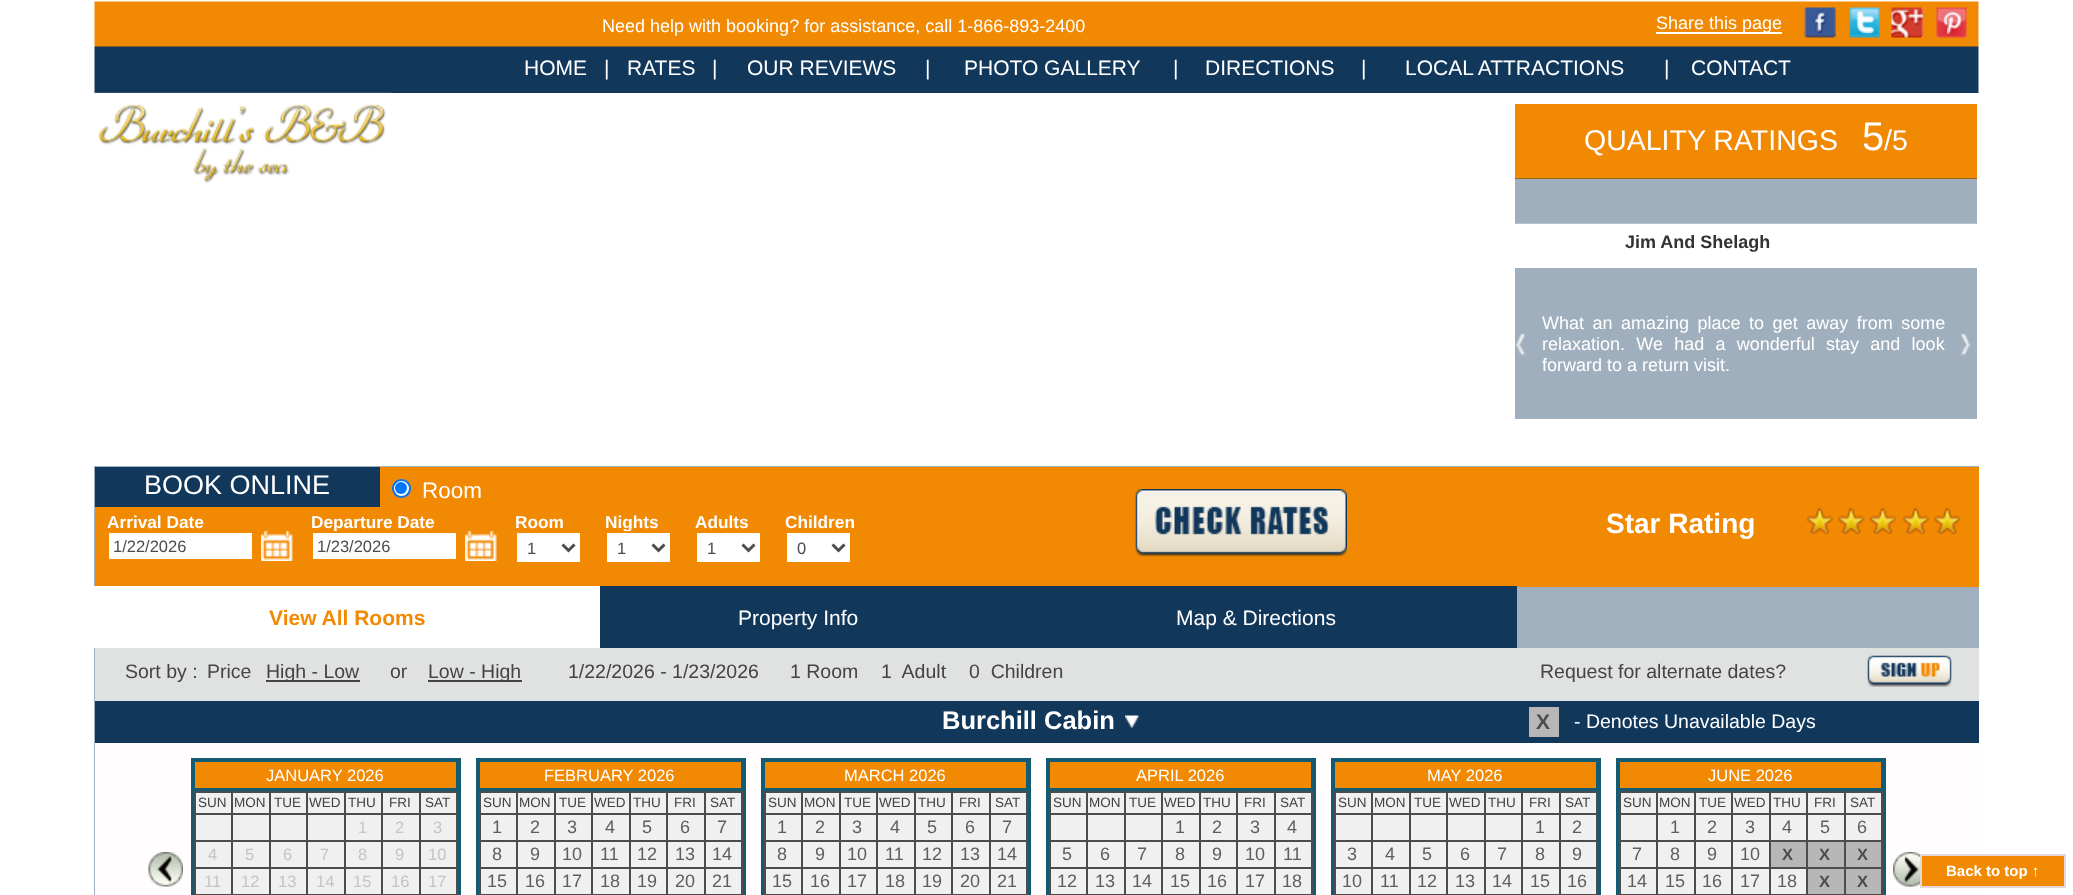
(async () => {
    const canvas = document.querySelector("canvas");
    canvas.width = 2073;
    canvas.height = 895;
    const context = canvas.getContext("2d");
    context.miterLimit = 4;
    context.fontKerning = "normal";
    function write(s, x, y, font, color) {
        context.font = font;
        context.fillStyle = color;
        context.fillText(s, x, y);
    }
    function block(x, y, w, h, color) {
        context.fillStyle = color;
        context.fillRect(x, y, w, h);
    }
    async function photo(src, x, y, w, h) {
        const img = new Image();
        img.src = src;
        await img.decode();
        context.drawImage(img, x, y, w, h);
    }

    block(0, 0, 2073, 895, "rgb(255, 255, 255)");
    block(1515, 179, 462, 44, "rgb(160, 175, 189)");
    await photo("media/1.png", 94, 1, 1885, 92);
    block(1656, 32, 126, 2, "rgb(255, 255, 255)");
    write("Share this page", 1656, 29, "18px Liberation Sans", "rgb(255, 255, 255)");
    await photo("media/2.png", 1804, 7, 32, 31);
    await photo("media/3.png", 1849, 7, 31, 31);
    await photo("media/4.png", 1891, 7, 32, 31);
    await photo("media/5.png", 1936, 7, 31, 31);
    write("Need help with booking? for assistance, call 1-866-893-2400", 602, 32, "18px Liberation Sans", "rgb(255, 255, 255)");
    write("HOME", 524, 75, "21px Liberation Sans", "rgb(255, 255, 255)");
    write("|", 604, 75, "21px Liberation Sans", "rgb(255, 255, 255)");
    write("RATES", 627, 75, "21px Liberation Sans", "rgb(255, 255, 255)");
    write("|", 712, 75, "21px Liberation Sans", "rgb(255, 255, 255)");
    write("OUR REVIEWS", 747, 75, "21px Liberation Sans", "rgb(255, 255, 255)");
    write("|", 925, 75, "21px Liberation Sans", "rgb(255, 255, 255)");
    write("PHOTO GALLERY", 964, 75, "21px Liberation Sans", "rgb(255, 255, 255)");
    write("|", 1173, 75, "21px Liberation Sans", "rgb(255, 255, 255)");
    write("DIRECTIONS", 1205, 75, "21px Liberation Sans", "rgb(255, 255, 255)");
    write("|", 1361, 75, "21px Liberation Sans", "rgb(255, 255, 255)");
    write("LOCAL ATTRACTIONS", 1405, 75, "21px Liberation Sans", "rgb(255, 255, 255)");
    write("|", 1664, 75, "21px Liberation Sans", "rgb(255, 255, 255)");
    write("CONTACT", 1691, 75, "21px Liberation Sans", "rgb(255, 255, 255)");
    await photo("media/6.png", 94, 92, 298, 92);
    block(1515, 104, 462, 74, "rgb(242, 137, 2)");
    block(1515, 178, 462, 1, "rgb(152, 104, 37)");
    write("QUALITY RATINGS", 1584, 150, "28.5px Liberation Sans", "rgb(255, 255, 255)");
    write("5", 1862, 150, "40px Liberation Sans", "rgb(255, 255, 255)");
    write("/5", 1884, 150, "28.5px Liberation Sans", "rgb(255, 255, 255)");
    block(1515, 223, 462, 1, "rgb(184, 195, 206)");
    write("Jim And Shelagh", 1625, 248, "bold 18px Liberation Sans", "rgb(51, 51, 51)");
    block(1515, 268, 462, 151, "rgb(160, 175, 189)");
    await photo("media/7.png", 1515, 333, 12, 23);
    context.wordSpacing = "3.5px";
    write("What an amazing place to get away from some", 1542, 329, "18px Liberation Sans", "rgb(255, 255, 255)");
    context.wordSpacing = "6.25px";
    write("relaxation. We had a wonderful stay and look", 1542, 350, "18px Liberation Sans", "rgb(255, 255, 255)");
    context.wordSpacing = "0px";
    write("forward to a return visit.", 1542, 371, "18px Liberation Sans", "rgb(255, 255, 255)");
    await photo("media/8.png", 1959, 333, 12, 23);
    block(94, 466, 1885, 429, "rgb(160, 176, 190)");
    block(95, 467, 1884, 120, "rgb(242, 137, 2)");
    block(95, 467, 285, 40, "rgb(17, 55, 91)");
    write("BOOK ONLINE", 144, 494, "27px Liberation Sans", "rgb(255, 255, 255)");
    context.beginPath();
    context.arc(401.5, 488.5, 8.5, 0, Math.PI * 2);
    context.fill();
    context.strokeStyle = "rgb(0, 117, 255)";
    context.lineWidth = 2;
    context.stroke();
    context.fillStyle = "rgb(0, 117, 255)";
    context.beginPath();
    context.arc(401, 488, 6, 0, Math.PI * 2);
    context.fill();
    write("Room", 422, 498, "22.5px Liberation Sans", "rgb(255, 255, 255)");
    await photo("media/9.png", 1135, 489, 212, 68);
    write("Arrival Date", 107, 528, "bold 17.25px Liberation Sans", "rgb(255, 255, 255)");
    block(109, 533, 143, 26, "rgb(255, 255, 255)");
    write("1/22/2026", 113, 552, "16.5px Liberation Sans", "rgb(76, 76, 76)");
    await photo("media/10.png", 261, 531, 32, 30);
    write("Departure Date", 311, 528, "bold 17.25px Liberation Sans", "rgb(255, 255, 255)");
    context.beginPath();
    context.rect(312, 532, 145, 28);
    context.fill();
    context.strokeStyle = "rgb(242, 137, 2)";
    context.stroke();
    write("1/23/2026", 317, 552, "16.5px Liberation Sans", "rgb(76, 76, 76)");
    await photo("media/11.png", 465, 531, 32, 30);
    write("Room", 515, 528, "bold 17.25px Liberation Sans", "rgb(255, 255, 255)");
    block(517, 533, 63, 29, "rgb(255, 255, 255)");
    context.beginPath();
    context.moveTo(562.5, 544.5);
    context.lineTo(568.5, 550.5);
    context.lineTo(574.5, 544.5);
    context.strokeStyle = "rgb(76, 76, 76)";
    context.lineWidth = 3;
    context.stroke();
    write("1", 527, 554, "16.5px Liberation Sans", "rgb(76, 76, 76)");
    write("Nights", 605, 528, "bold 17.25px Liberation Sans", "rgb(255, 255, 255)");
    context.beginPath();
    context.rect(606, 532, 65, 31);
    context.fill();
    context.strokeStyle = "rgb(242, 137, 2)";
    context.lineWidth = 2;
    context.stroke();
    context.beginPath();
    context.moveTo(652.5, 544.5);
    context.lineTo(658.5, 550.5);
    context.lineTo(664.5, 544.5);
    context.strokeStyle = "rgb(76, 76, 76)";
    context.lineWidth = 3;
    context.stroke();
    write("1", 617, 554, "16.5px Liberation Sans", "rgb(76, 76, 76)");
    write("Adults", 695, 528, "bold 17.25px Liberation Sans", "rgb(255, 255, 255)");
    block(697, 533, 63, 29, "rgb(255, 255, 255)");
    context.beginPath();
    context.moveTo(742.5, 544.5);
    context.lineTo(748.5, 550.5);
    context.lineTo(754.5, 544.5);
    context.stroke();
    write("1", 707, 554, "16.5px Liberation Sans", "rgb(76, 76, 76)");
    write("Children", 785, 528, "bold 17.25px Liberation Sans", "rgb(255, 255, 255)");
    block(787, 533, 63, 29, "rgb(255, 255, 255)");
    context.beginPath();
    context.moveTo(832.5, 544.5);
    context.lineTo(838.5, 550.5);
    context.lineTo(844.5, 544.5);
    context.stroke();
    write("0", 797, 554, "16.5px Liberation Sans", "rgb(76, 76, 76)");
    write("Star Rating", 1606, 533, "bold 28px Liberation Sans", "rgb(255, 255, 255)");
    await photo("media/12.png", 1806, 508, 27, 26);
    await photo("media/13.png", 1837, 508, 28, 26);
    await photo("media/12.png", 1869, 508, 27, 26);
    await photo("media/12.png", 1902, 508, 27, 26);
    await photo("media/14.png", 1933, 508, 28, 26);
    block(94, 586, 506, 62, "rgb(255, 255, 255)");
    write("View All Rooms", 269, 625, "bold 21px Liberation Sans", "rgb(242, 137, 2)");
    block(600, 586, 917, 62, "rgb(17, 55, 91)");
    write("Property Info", 738, 625, "21px Liberation Sans", "rgb(255, 255, 255)");
    write("Map & Directions", 1176, 625, "21px Liberation Sans", "rgb(255, 255, 255)");
    block(95, 648, 1884, 53, "rgb(224, 225, 225)");
    write("Sort by :", 125, 678, "19.5px Liberation Sans", "rgb(68, 68, 68)");
    write("Price", 207, 678, "19.5px Liberation Sans", "rgb(68, 68, 68)");
    block(266, 680, 94, 2, "rgb(68, 68, 68)");
    write("High - Low", 266, 678, "19.5px Liberation Sans", "rgb(68, 68, 68)");
    write("or", 390, 678, "19.5px Liberation Sans", "rgb(68, 68, 68)");
    block(428, 680, 94, 2, "rgb(68, 68, 68)");
    write("Low - High", 428, 678, "19.5px Liberation Sans", "rgb(68, 68, 68)");
    write("1/22/2026 - 1/23/2026", 568, 678, "19.5px Liberation Sans", "rgb(68, 68, 68)");
    write("1 Room", 790, 678, "19.5px Liberation Sans", "rgb(68, 68, 68)");
    write("1  Adult", 881, 678, "19.5px Liberation Sans", "rgb(68, 68, 68)");
    write("0  Children", 969, 678, "19.5px Liberation Sans", "rgb(68, 68, 68)");
    write("Request for alternate dates?", 1540, 678, "19.5px Liberation Sans", "rgb(68, 68, 68)");
    await photo("media/15.png", 1867, 655, 85, 32);
    block(95, 701, 1884, 42, "rgb(17, 55, 91)");
    write("Burchill Cabin", 942, 729, "bold 25.5px Liberation Sans", "rgb(255, 255, 255)");
    await photo("media/16.png", 1125, 715, 14, 13);
    block(1529, 707, 30, 30, "rgb(183, 183, 183)");
    write("X", 1536, 729, "bold 21px Liberation Sans", "rgb(76, 76, 76)");
    write("- Denotes Unavailable Days", 1574, 728, "19.5px Liberation Sans", "rgb(255, 255, 255)");
    block(95, 743, 1884, 152, "rgb(255, 253, 253)");
    await photo("media/17.png", 148, 852, 35, 35);
    block(191, 758, 270, 137, "rgb(19, 91, 114)");
    block(195, 762, 261, 26, "rgb(242, 137, 2)");
    write("JANUARY 2026", 266, 781, "16.5px Liberation Sans", "rgb(255, 255, 255)");
    block(196, 793, 260, 101, "rgb(240, 240, 240)");
    block(194, 791, 264, 2, "rgb(76, 76, 76)");
    block(456, 791, 2, 104, "rgb(76, 76, 76)");
    block(194, 791, 2, 104, "rgb(76, 76, 76)");
    write("SUN", 198, 807, "13.5px Liberation Sans", "rgb(62, 66, 65)");
    block(419, 813, 39, 2, "rgb(76, 76, 76)");
    block(419, 840, 39, 2, "rgb(76, 76, 76)");
    block(419, 867, 39, 2, "rgb(76, 76, 76)");
    block(194, 894, 264, 1, "rgb(76, 76, 76)");
    block(419, 867, 2, 28, "rgb(76, 76, 76)");
    block(381, 867, 39, 2, "rgb(76, 76, 76)");
    block(419, 840, 2, 29, "rgb(76, 76, 76)");
    block(381, 840, 39, 2, "rgb(76, 76, 76)");
    block(419, 813, 2, 29, "rgb(76, 76, 76)");
    block(381, 813, 39, 2, "rgb(76, 76, 76)");
    block(381, 867, 2, 28, "rgb(76, 76, 76)");
    block(344, 867, 39, 2, "rgb(76, 76, 76)");
    block(381, 840, 2, 29, "rgb(76, 76, 76)");
    block(344, 840, 39, 2, "rgb(76, 76, 76)");
    block(381, 813, 2, 29, "rgb(76, 76, 76)");
    block(344, 813, 39, 2, "rgb(76, 76, 76)");
    block(344, 867, 2, 28, "rgb(76, 76, 76)");
    block(306, 867, 39, 2, "rgb(76, 76, 76)");
    block(344, 840, 2, 29, "rgb(76, 76, 76)");
    block(306, 840, 39, 2, "rgb(76, 76, 76)");
    block(344, 813, 2, 29, "rgb(76, 76, 76)");
    block(306, 813, 39, 2, "rgb(76, 76, 76)");
    block(306, 867, 2, 28, "rgb(76, 76, 76)");
    block(269, 867, 39, 2, "rgb(76, 76, 76)");
    block(306, 840, 2, 29, "rgb(76, 76, 76)");
    block(269, 840, 39, 2, "rgb(76, 76, 76)");
    block(306, 813, 2, 29, "rgb(76, 76, 76)");
    block(269, 813, 39, 2, "rgb(76, 76, 76)");
    block(269, 867, 2, 28, "rgb(76, 76, 76)");
    block(231, 867, 39, 2, "rgb(76, 76, 76)");
    block(269, 840, 2, 29, "rgb(76, 76, 76)");
    block(231, 840, 39, 2, "rgb(76, 76, 76)");
    block(269, 813, 2, 29, "rgb(76, 76, 76)");
    block(231, 813, 39, 2, "rgb(76, 76, 76)");
    block(231, 867, 2, 28, "rgb(76, 76, 76)");
    block(194, 867, 39, 2, "rgb(76, 76, 76)");
    block(231, 840, 2, 29, "rgb(76, 76, 76)");
    block(194, 840, 39, 2, "rgb(76, 76, 76)");
    block(231, 813, 2, 29, "rgb(76, 76, 76)");
    block(194, 813, 39, 2, "rgb(76, 76, 76)");
    block(231, 791, 2, 24, "rgb(76, 76, 76)");
    write("MON", 234, 807, "13.5px Liberation Sans", "rgb(62, 66, 65)");
    block(269, 791, 2, 24, "rgb(76, 76, 76)");
    write("TUE", 274, 807, "13.5px Liberation Sans", "rgb(62, 66, 65)");
    block(306, 791, 2, 24, "rgb(76, 76, 76)");
    write("WED", 309, 807, "13.5px Liberation Sans", "rgb(62, 66, 65)");
    block(344, 791, 2, 24, "rgb(76, 76, 76)");
    write("THU", 348, 807, "13.5px Liberation Sans", "rgb(62, 66, 65)");
    block(381, 791, 2, 24, "rgb(76, 76, 76)");
    write("FRI", 389, 807, "13.5px Liberation Sans", "rgb(62, 66, 65)");
    block(419, 791, 2, 24, "rgb(76, 76, 76)");
    write("SAT", 425, 807, "13.5px Liberation Sans", "rgb(62, 66, 65)");
    write("1", 358, 833, "16.5px Liberation Sans", "rgb(197, 196, 196)");
    write("2", 395, 833, "16.5px Liberation Sans", "rgb(197, 196, 196)");
    write("3", 433, 833, "16.5px Liberation Sans", "rgb(197, 196, 196)");
    write("4", 208, 860, "16.5px Liberation Sans", "rgb(197, 196, 196)");
    write("5", 245, 860, "16.5px Liberation Sans", "rgb(197, 196, 196)");
    write("6", 283, 860, "16.5px Liberation Sans", "rgb(197, 196, 196)");
    write("7", 320, 860, "16.5px Liberation Sans", "rgb(197, 196, 196)");
    write("8", 358, 860, "16.5px Liberation Sans", "rgb(197, 196, 196)");
    write("9", 395, 860, "16.5px Liberation Sans", "rgb(197, 196, 196)");
    write("10", 428, 860, "16.5px Liberation Sans", "rgb(197, 196, 196)");
    write("11", 204, 887, "16.5px Liberation Sans", "rgb(197, 196, 196)");
    write("12", 241, 887, "16.5px Liberation Sans", "rgb(197, 196, 196)");
    write("13", 278, 887, "16.5px Liberation Sans", "rgb(197, 196, 196)");
    write("14", 316, 887, "16.5px Liberation Sans", "rgb(197, 196, 196)");
    write("15", 353, 887, "16.5px Liberation Sans", "rgb(197, 196, 196)");
    write("16", 391, 887, "16.5px Liberation Sans", "rgb(197, 196, 196)");
    write("17", 428, 887, "16.5px Liberation Sans", "rgb(197, 196, 196)");
    block(476, 758, 270, 137, "rgb(19, 91, 114)");
    block(480, 762, 261, 26, "rgb(242, 137, 2)");
    write("FEBRUARY 2026", 544, 781, "16.5px Liberation Sans", "rgb(255, 255, 255)");
    block(481, 793, 260, 101, "rgb(240, 240, 240)");
    block(479, 791, 264, 2, "rgb(76, 76, 76)");
    block(741, 791, 2, 104, "rgb(76, 76, 76)");
    block(479, 791, 2, 104, "rgb(76, 76, 76)");
    write("SUN", 483, 807, "13.5px Liberation Sans", "rgb(62, 66, 65)");
    block(704, 813, 39, 2, "rgb(76, 76, 76)");
    block(704, 840, 39, 2, "rgb(76, 76, 76)");
    block(704, 867, 39, 2, "rgb(76, 76, 76)");
    block(479, 894, 264, 1, "rgb(76, 76, 76)");
    block(704, 867, 2, 28, "rgb(76, 76, 76)");
    block(666, 867, 39, 2, "rgb(76, 76, 76)");
    block(704, 840, 2, 29, "rgb(76, 76, 76)");
    block(666, 840, 39, 2, "rgb(76, 76, 76)");
    block(704, 813, 2, 29, "rgb(76, 76, 76)");
    block(666, 813, 39, 2, "rgb(76, 76, 76)");
    block(666, 867, 2, 28, "rgb(76, 76, 76)");
    block(629, 867, 39, 2, "rgb(76, 76, 76)");
    block(666, 840, 2, 29, "rgb(76, 76, 76)");
    block(629, 840, 39, 2, "rgb(76, 76, 76)");
    block(666, 813, 2, 29, "rgb(76, 76, 76)");
    block(629, 813, 39, 2, "rgb(76, 76, 76)");
    block(629, 867, 2, 28, "rgb(76, 76, 76)");
    block(591, 867, 39, 2, "rgb(76, 76, 76)");
    block(629, 840, 2, 29, "rgb(76, 76, 76)");
    block(591, 840, 39, 2, "rgb(76, 76, 76)");
    block(629, 813, 2, 29, "rgb(76, 76, 76)");
    block(591, 813, 39, 2, "rgb(76, 76, 76)");
    block(591, 867, 2, 28, "rgb(76, 76, 76)");
    block(554, 867, 39, 2, "rgb(76, 76, 76)");
    block(591, 840, 2, 29, "rgb(76, 76, 76)");
    block(554, 840, 39, 2, "rgb(76, 76, 76)");
    block(591, 813, 2, 29, "rgb(76, 76, 76)");
    block(554, 813, 39, 2, "rgb(76, 76, 76)");
    block(554, 867, 2, 28, "rgb(76, 76, 76)");
    block(516, 867, 39, 2, "rgb(76, 76, 76)");
    block(554, 840, 2, 29, "rgb(76, 76, 76)");
    block(516, 840, 39, 2, "rgb(76, 76, 76)");
    block(554, 813, 2, 29, "rgb(76, 76, 76)");
    block(516, 813, 39, 2, "rgb(76, 76, 76)");
    block(516, 867, 2, 28, "rgb(76, 76, 76)");
    block(479, 867, 39, 2, "rgb(76, 76, 76)");
    block(516, 840, 2, 29, "rgb(76, 76, 76)");
    block(479, 840, 39, 2, "rgb(76, 76, 76)");
    block(516, 813, 2, 29, "rgb(76, 76, 76)");
    block(479, 813, 39, 2, "rgb(76, 76, 76)");
    block(516, 791, 2, 24, "rgb(76, 76, 76)");
    write("MON", 519, 807, "13.5px Liberation Sans", "rgb(62, 66, 65)");
    block(554, 791, 2, 24, "rgb(76, 76, 76)");
    write("TUE", 559, 807, "13.5px Liberation Sans", "rgb(62, 66, 65)");
    block(591, 791, 2, 24, "rgb(76, 76, 76)");
    write("WED", 594, 807, "13.5px Liberation Sans", "rgb(62, 66, 65)");
    block(629, 791, 2, 24, "rgb(76, 76, 76)");
    write("THU", 633, 807, "13.5px Liberation Sans", "rgb(62, 66, 65)");
    block(666, 791, 2, 24, "rgb(76, 76, 76)");
    write("FRI", 674, 807, "13.5px Liberation Sans", "rgb(62, 66, 65)");
    block(704, 791, 2, 24, "rgb(76, 76, 76)");
    write("SAT", 710, 807, "13.5px Liberation Sans", "rgb(62, 66, 65)");
    write("1", 492, 833, "18px Liberation Sans", "rgb(94, 94, 94)");
    write("2", 530, 833, "18px Liberation Sans", "rgb(94, 94, 94)");
    write("3", 567, 833, "18px Liberation Sans", "rgb(94, 94, 94)");
    write("4", 605, 833, "18px Liberation Sans", "rgb(94, 94, 94)");
    write("5", 642, 833, "18px Liberation Sans", "rgb(94, 94, 94)");
    write("6", 680, 833, "18px Liberation Sans", "rgb(94, 94, 94)");
    write("7", 717, 833, "18px Liberation Sans", "rgb(94, 94, 94)");
    write("8", 492, 860, "18px Liberation Sans", "rgb(94, 94, 94)");
    write("9", 530, 860, "18px Liberation Sans", "rgb(94, 94, 94)");
    write("10", 562, 860, "18px Liberation Sans", "rgb(94, 94, 94)");
    write("11", 600, 860, "18px Liberation Sans", "rgb(94, 94, 94)");
    write("12", 637, 860, "18px Liberation Sans", "rgb(94, 94, 94)");
    write("13", 675, 860, "18px Liberation Sans", "rgb(94, 94, 94)");
    write("14", 712, 860, "18px Liberation Sans", "rgb(94, 94, 94)");
    write("15", 487, 887, "18px Liberation Sans", "rgb(94, 94, 94)");
    write("16", 525, 887, "18px Liberation Sans", "rgb(94, 94, 94)");
    write("17", 562, 887, "18px Liberation Sans", "rgb(94, 94, 94)");
    write("18", 600, 887, "18px Liberation Sans", "rgb(94, 94, 94)");
    write("19", 637, 887, "18px Liberation Sans", "rgb(94, 94, 94)");
    write("20", 675, 887, "18px Liberation Sans", "rgb(94, 94, 94)");
    write("21", 712, 887, "18px Liberation Sans", "rgb(94, 94, 94)");
    block(761, 758, 270, 137, "rgb(19, 91, 114)");
    block(765, 762, 261, 26, "rgb(242, 137, 2)");
    write("MARCH 2026", 844, 781, "16.5px Liberation Sans", "rgb(255, 255, 255)");
    block(766, 793, 260, 101, "rgb(240, 240, 240)");
    block(764, 791, 264, 2, "rgb(76, 76, 76)");
    block(1026, 791, 2, 104, "rgb(76, 76, 76)");
    block(764, 791, 2, 104, "rgb(76, 76, 76)");
    write("SUN", 768, 807, "13.5px Liberation Sans", "rgb(62, 66, 65)");
    block(989, 813, 39, 2, "rgb(76, 76, 76)");
    block(989, 840, 39, 2, "rgb(76, 76, 76)");
    block(989, 867, 39, 2, "rgb(76, 76, 76)");
    block(764, 894, 264, 1, "rgb(76, 76, 76)");
    block(989, 867, 2, 28, "rgb(76, 76, 76)");
    block(951, 867, 39, 2, "rgb(76, 76, 76)");
    block(989, 840, 2, 29, "rgb(76, 76, 76)");
    block(951, 840, 39, 2, "rgb(76, 76, 76)");
    block(989, 813, 2, 29, "rgb(76, 76, 76)");
    block(951, 813, 39, 2, "rgb(76, 76, 76)");
    block(951, 867, 2, 28, "rgb(76, 76, 76)");
    block(914, 867, 39, 2, "rgb(76, 76, 76)");
    block(951, 840, 2, 29, "rgb(76, 76, 76)");
    block(914, 840, 39, 2, "rgb(76, 76, 76)");
    block(951, 813, 2, 29, "rgb(76, 76, 76)");
    block(914, 813, 39, 2, "rgb(76, 76, 76)");
    block(914, 867, 2, 28, "rgb(76, 76, 76)");
    block(876, 867, 39, 2, "rgb(76, 76, 76)");
    block(914, 840, 2, 29, "rgb(76, 76, 76)");
    block(876, 840, 39, 2, "rgb(76, 76, 76)");
    block(914, 813, 2, 29, "rgb(76, 76, 76)");
    block(876, 813, 39, 2, "rgb(76, 76, 76)");
    block(876, 867, 2, 28, "rgb(76, 76, 76)");
    block(839, 867, 39, 2, "rgb(76, 76, 76)");
    block(876, 840, 2, 29, "rgb(76, 76, 76)");
    block(839, 840, 39, 2, "rgb(76, 76, 76)");
    block(876, 813, 2, 29, "rgb(76, 76, 76)");
    block(839, 813, 39, 2, "rgb(76, 76, 76)");
    block(839, 867, 2, 28, "rgb(76, 76, 76)");
    block(801, 867, 39, 2, "rgb(76, 76, 76)");
    block(839, 840, 2, 29, "rgb(76, 76, 76)");
    block(801, 840, 39, 2, "rgb(76, 76, 76)");
    block(839, 813, 2, 29, "rgb(76, 76, 76)");
    block(801, 813, 39, 2, "rgb(76, 76, 76)");
    block(801, 867, 2, 28, "rgb(76, 76, 76)");
    block(764, 867, 39, 2, "rgb(76, 76, 76)");
    block(801, 840, 2, 29, "rgb(76, 76, 76)");
    block(764, 840, 39, 2, "rgb(76, 76, 76)");
    block(801, 813, 2, 29, "rgb(76, 76, 76)");
    block(764, 813, 39, 2, "rgb(76, 76, 76)");
    block(801, 791, 2, 24, "rgb(76, 76, 76)");
    write("MON", 804, 807, "13.5px Liberation Sans", "rgb(62, 66, 65)");
    block(839, 791, 2, 24, "rgb(76, 76, 76)");
    write("TUE", 844, 807, "13.5px Liberation Sans", "rgb(62, 66, 65)");
    block(876, 791, 2, 24, "rgb(76, 76, 76)");
    write("WED", 879, 807, "13.5px Liberation Sans", "rgb(62, 66, 65)");
    block(914, 791, 2, 24, "rgb(76, 76, 76)");
    write("THU", 918, 807, "13.5px Liberation Sans", "rgb(62, 66, 65)");
    block(951, 791, 2, 24, "rgb(76, 76, 76)");
    write("FRI", 959, 807, "13.5px Liberation Sans", "rgb(62, 66, 65)");
    block(989, 791, 2, 24, "rgb(76, 76, 76)");
    write("SAT", 995, 807, "13.5px Liberation Sans", "rgb(62, 66, 65)");
    write("1", 777, 833, "18px Liberation Sans", "rgb(94, 94, 94)");
    write("2", 815, 833, "18px Liberation Sans", "rgb(94, 94, 94)");
    write("3", 852, 833, "18px Liberation Sans", "rgb(94, 94, 94)");
    write("4", 890, 833, "18px Liberation Sans", "rgb(94, 94, 94)");
    write("5", 927, 833, "18px Liberation Sans", "rgb(94, 94, 94)");
    write("6", 965, 833, "18px Liberation Sans", "rgb(94, 94, 94)");
    write("7", 1002, 833, "18px Liberation Sans", "rgb(94, 94, 94)");
    write("8", 777, 860, "18px Liberation Sans", "rgb(94, 94, 94)");
    write("9", 815, 860, "18px Liberation Sans", "rgb(94, 94, 94)");
    write("10", 847, 860, "18px Liberation Sans", "rgb(94, 94, 94)");
    write("11", 885, 860, "18px Liberation Sans", "rgb(94, 94, 94)");
    write("12", 922, 860, "18px Liberation Sans", "rgb(94, 94, 94)");
    write("13", 960, 860, "18px Liberation Sans", "rgb(94, 94, 94)");
    write("14", 997, 860, "18px Liberation Sans", "rgb(94, 94, 94)");
    write("15", 772, 887, "18px Liberation Sans", "rgb(94, 94, 94)");
    write("16", 810, 887, "18px Liberation Sans", "rgb(94, 94, 94)");
    write("17", 847, 887, "18px Liberation Sans", "rgb(94, 94, 94)");
    write("18", 885, 887, "18px Liberation Sans", "rgb(94, 94, 94)");
    write("19", 922, 887, "18px Liberation Sans", "rgb(94, 94, 94)");
    write("20", 960, 887, "18px Liberation Sans", "rgb(94, 94, 94)");
    write("21", 997, 887, "18px Liberation Sans", "rgb(94, 94, 94)");
    block(1046, 758, 270, 137, "rgb(19, 91, 114)");
    block(1050, 762, 261, 26, "rgb(242, 137, 2)");
    write("APRIL 2026", 1136, 781, "16.5px Liberation Sans", "rgb(255, 255, 255)");
    block(1051, 793, 260, 101, "rgb(240, 240, 240)");
    block(1049, 791, 264, 2, "rgb(76, 76, 76)");
    block(1311, 791, 2, 104, "rgb(76, 76, 76)");
    block(1049, 791, 2, 104, "rgb(76, 76, 76)");
    write("SUN", 1053, 807, "13.5px Liberation Sans", "rgb(62, 66, 65)");
    block(1274, 813, 39, 2, "rgb(76, 76, 76)");
    block(1274, 840, 39, 2, "rgb(76, 76, 76)");
    block(1274, 867, 39, 2, "rgb(76, 76, 76)");
    block(1049, 894, 264, 1, "rgb(76, 76, 76)");
    block(1274, 867, 2, 28, "rgb(76, 76, 76)");
    block(1236, 867, 39, 2, "rgb(76, 76, 76)");
    block(1274, 840, 2, 29, "rgb(76, 76, 76)");
    block(1236, 840, 39, 2, "rgb(76, 76, 76)");
    block(1274, 813, 2, 29, "rgb(76, 76, 76)");
    block(1236, 813, 39, 2, "rgb(76, 76, 76)");
    block(1236, 867, 2, 28, "rgb(76, 76, 76)");
    block(1199, 867, 39, 2, "rgb(76, 76, 76)");
    block(1236, 840, 2, 29, "rgb(76, 76, 76)");
    block(1199, 840, 39, 2, "rgb(76, 76, 76)");
    block(1236, 813, 2, 29, "rgb(76, 76, 76)");
    block(1199, 813, 39, 2, "rgb(76, 76, 76)");
    block(1199, 867, 2, 28, "rgb(76, 76, 76)");
    block(1161, 867, 39, 2, "rgb(76, 76, 76)");
    block(1199, 840, 2, 29, "rgb(76, 76, 76)");
    block(1161, 840, 39, 2, "rgb(76, 76, 76)");
    block(1199, 813, 2, 29, "rgb(76, 76, 76)");
    block(1161, 813, 39, 2, "rgb(76, 76, 76)");
    block(1161, 867, 2, 28, "rgb(76, 76, 76)");
    block(1124, 867, 39, 2, "rgb(76, 76, 76)");
    block(1161, 840, 2, 29, "rgb(76, 76, 76)");
    block(1124, 840, 39, 2, "rgb(76, 76, 76)");
    block(1161, 813, 2, 29, "rgb(76, 76, 76)");
    block(1124, 813, 39, 2, "rgb(76, 76, 76)");
    block(1124, 867, 2, 28, "rgb(76, 76, 76)");
    block(1086, 867, 39, 2, "rgb(76, 76, 76)");
    block(1124, 840, 2, 29, "rgb(76, 76, 76)");
    block(1086, 840, 39, 2, "rgb(76, 76, 76)");
    block(1124, 813, 2, 29, "rgb(76, 76, 76)");
    block(1086, 813, 39, 2, "rgb(76, 76, 76)");
    block(1086, 867, 2, 28, "rgb(76, 76, 76)");
    block(1049, 867, 39, 2, "rgb(76, 76, 76)");
    block(1086, 840, 2, 29, "rgb(76, 76, 76)");
    block(1049, 840, 39, 2, "rgb(76, 76, 76)");
    block(1086, 813, 2, 29, "rgb(76, 76, 76)");
    block(1049, 813, 39, 2, "rgb(76, 76, 76)");
    block(1086, 791, 2, 24, "rgb(76, 76, 76)");
    write("MON", 1089, 807, "13.5px Liberation Sans", "rgb(62, 66, 65)");
    block(1124, 791, 2, 24, "rgb(76, 76, 76)");
    write("TUE", 1129, 807, "13.5px Liberation Sans", "rgb(62, 66, 65)");
    block(1161, 791, 2, 24, "rgb(76, 76, 76)");
    write("WED", 1164, 807, "13.5px Liberation Sans", "rgb(62, 66, 65)");
    block(1199, 791, 2, 24, "rgb(76, 76, 76)");
    write("THU", 1203, 807, "13.5px Liberation Sans", "rgb(62, 66, 65)");
    block(1236, 791, 2, 24, "rgb(76, 76, 76)");
    write("FRI", 1244, 807, "13.5px Liberation Sans", "rgb(62, 66, 65)");
    block(1274, 791, 2, 24, "rgb(76, 76, 76)");
    write("SAT", 1280, 807, "13.5px Liberation Sans", "rgb(62, 66, 65)");
    write("1", 1175, 833, "18px Liberation Sans", "rgb(94, 94, 94)");
    write("2", 1212, 833, "18px Liberation Sans", "rgb(94, 94, 94)");
    write("3", 1250, 833, "18px Liberation Sans", "rgb(94, 94, 94)");
    write("4", 1287, 833, "18px Liberation Sans", "rgb(94, 94, 94)");
    write("5", 1062, 860, "18px Liberation Sans", "rgb(94, 94, 94)");
    write("6", 1100, 860, "18px Liberation Sans", "rgb(94, 94, 94)");
    write("7", 1137, 860, "18px Liberation Sans", "rgb(94, 94, 94)");
    write("8", 1175, 860, "18px Liberation Sans", "rgb(94, 94, 94)");
    write("9", 1212, 860, "18px Liberation Sans", "rgb(94, 94, 94)");
    write("10", 1245, 860, "18px Liberation Sans", "rgb(94, 94, 94)");
    write("11", 1283, 860, "18px Liberation Sans", "rgb(94, 94, 94)");
    write("12", 1057, 887, "18px Liberation Sans", "rgb(94, 94, 94)");
    write("13", 1095, 887, "18px Liberation Sans", "rgb(94, 94, 94)");
    write("14", 1132, 887, "18px Liberation Sans", "rgb(94, 94, 94)");
    write("15", 1170, 887, "18px Liberation Sans", "rgb(94, 94, 94)");
    write("16", 1207, 887, "18px Liberation Sans", "rgb(94, 94, 94)");
    write("17", 1245, 887, "18px Liberation Sans", "rgb(94, 94, 94)");
    write("18", 1282, 887, "18px Liberation Sans", "rgb(94, 94, 94)");
    block(1331, 758, 270, 137, "rgb(19, 91, 114)");
    block(1335, 762, 261, 26, "rgb(242, 137, 2)");
    write("MAY 2026", 1427, 781, "16.5px Liberation Sans", "rgb(255, 255, 255)");
    block(1336, 793, 260, 101, "rgb(240, 240, 240)");
    block(1334, 791, 264, 2, "rgb(76, 76, 76)");
    block(1596, 791, 2, 104, "rgb(76, 76, 76)");
    block(1334, 791, 2, 104, "rgb(76, 76, 76)");
    write("SUN", 1338, 807, "13.5px Liberation Sans", "rgb(62, 66, 65)");
    block(1559, 813, 39, 2, "rgb(76, 76, 76)");
    block(1559, 840, 39, 2, "rgb(76, 76, 76)");
    block(1559, 867, 39, 2, "rgb(76, 76, 76)");
    block(1334, 894, 264, 1, "rgb(76, 76, 76)");
    block(1559, 867, 2, 28, "rgb(76, 76, 76)");
    block(1521, 867, 39, 2, "rgb(76, 76, 76)");
    block(1559, 840, 2, 29, "rgb(76, 76, 76)");
    block(1521, 840, 39, 2, "rgb(76, 76, 76)");
    block(1559, 813, 2, 29, "rgb(76, 76, 76)");
    block(1521, 813, 39, 2, "rgb(76, 76, 76)");
    block(1521, 867, 2, 28, "rgb(76, 76, 76)");
    block(1484, 867, 39, 2, "rgb(76, 76, 76)");
    block(1521, 840, 2, 29, "rgb(76, 76, 76)");
    block(1484, 840, 39, 2, "rgb(76, 76, 76)");
    block(1521, 813, 2, 29, "rgb(76, 76, 76)");
    block(1484, 813, 39, 2, "rgb(76, 76, 76)");
    block(1484, 867, 2, 28, "rgb(76, 76, 76)");
    block(1446, 867, 39, 2, "rgb(76, 76, 76)");
    block(1484, 840, 2, 29, "rgb(76, 76, 76)");
    block(1446, 840, 39, 2, "rgb(76, 76, 76)");
    block(1484, 813, 2, 29, "rgb(76, 76, 76)");
    block(1446, 813, 39, 2, "rgb(76, 76, 76)");
    block(1446, 867, 2, 28, "rgb(76, 76, 76)");
    block(1409, 867, 39, 2, "rgb(76, 76, 76)");
    block(1446, 840, 2, 29, "rgb(76, 76, 76)");
    block(1409, 840, 39, 2, "rgb(76, 76, 76)");
    block(1446, 813, 2, 29, "rgb(76, 76, 76)");
    block(1409, 813, 39, 2, "rgb(76, 76, 76)");
    block(1409, 867, 2, 28, "rgb(76, 76, 76)");
    block(1371, 867, 39, 2, "rgb(76, 76, 76)");
    block(1409, 840, 2, 29, "rgb(76, 76, 76)");
    block(1371, 840, 39, 2, "rgb(76, 76, 76)");
    block(1409, 813, 2, 29, "rgb(76, 76, 76)");
    block(1371, 813, 39, 2, "rgb(76, 76, 76)");
    block(1371, 867, 2, 28, "rgb(76, 76, 76)");
    block(1334, 867, 39, 2, "rgb(76, 76, 76)");
    block(1371, 840, 2, 29, "rgb(76, 76, 76)");
    block(1334, 840, 39, 2, "rgb(76, 76, 76)");
    block(1371, 813, 2, 29, "rgb(76, 76, 76)");
    block(1334, 813, 39, 2, "rgb(76, 76, 76)");
    block(1371, 791, 2, 24, "rgb(76, 76, 76)");
    write("MON", 1374, 807, "13.5px Liberation Sans", "rgb(62, 66, 65)");
    block(1409, 791, 2, 24, "rgb(76, 76, 76)");
    write("TUE", 1414, 807, "13.5px Liberation Sans", "rgb(62, 66, 65)");
    block(1446, 791, 2, 24, "rgb(76, 76, 76)");
    write("WED", 1449, 807, "13.5px Liberation Sans", "rgb(62, 66, 65)");
    block(1484, 791, 2, 24, "rgb(76, 76, 76)");
    write("THU", 1488, 807, "13.5px Liberation Sans", "rgb(62, 66, 65)");
    block(1521, 791, 2, 24, "rgb(76, 76, 76)");
    write("FRI", 1529, 807, "13.5px Liberation Sans", "rgb(62, 66, 65)");
    block(1559, 791, 2, 24, "rgb(76, 76, 76)");
    write("SAT", 1565, 807, "13.5px Liberation Sans", "rgb(62, 66, 65)");
    write("1", 1535, 833, "18px Liberation Sans", "rgb(94, 94, 94)");
    write("2", 1572, 833, "18px Liberation Sans", "rgb(94, 94, 94)");
    write("3", 1347, 860, "18px Liberation Sans", "rgb(94, 94, 94)");
    write("4", 1385, 860, "18px Liberation Sans", "rgb(94, 94, 94)");
    write("5", 1422, 860, "18px Liberation Sans", "rgb(94, 94, 94)");
    write("6", 1460, 860, "18px Liberation Sans", "rgb(94, 94, 94)");
    write("7", 1497, 860, "18px Liberation Sans", "rgb(94, 94, 94)");
    write("8", 1535, 860, "18px Liberation Sans", "rgb(94, 94, 94)");
    write("9", 1572, 860, "18px Liberation Sans", "rgb(94, 94, 94)");
    write("10", 1342, 887, "18px Liberation Sans", "rgb(94, 94, 94)");
    write("11", 1380, 887, "18px Liberation Sans", "rgb(94, 94, 94)");
    write("12", 1417, 887, "18px Liberation Sans", "rgb(94, 94, 94)");
    write("13", 1455, 887, "18px Liberation Sans", "rgb(94, 94, 94)");
    write("14", 1492, 887, "18px Liberation Sans", "rgb(94, 94, 94)");
    write("15", 1530, 887, "18px Liberation Sans", "rgb(94, 94, 94)");
    write("16", 1567, 887, "18px Liberation Sans", "rgb(94, 94, 94)");
    block(1616, 758, 270, 137, "rgb(19, 91, 114)");
    block(1620, 762, 261, 26, "rgb(242, 137, 2)");
    write("JUNE 2026", 1708, 781, "16.5px Liberation Sans", "rgb(255, 255, 255)");
    block(1621, 793, 260, 101, "rgb(240, 240, 240)");
    block(1619, 791, 264, 2, "rgb(76, 76, 76)");
    block(1881, 791, 2, 104, "rgb(76, 76, 76)");
    block(1619, 791, 2, 104, "rgb(76, 76, 76)");
    write("SUN", 1623, 807, "13.5px Liberation Sans", "rgb(62, 66, 65)");
    block(1844, 813, 39, 2, "rgb(76, 76, 76)");
    block(1844, 840, 39, 2, "rgb(76, 76, 76)");
    block(1844, 867, 39, 2, "rgb(76, 76, 76)");
    block(1619, 894, 264, 1, "rgb(76, 76, 76)");
    block(1844, 867, 2, 28, "rgb(76, 76, 76)");
    block(1806, 867, 39, 2, "rgb(76, 76, 76)");
    block(1844, 840, 2, 29, "rgb(76, 76, 76)");
    block(1806, 840, 39, 2, "rgb(76, 76, 76)");
    block(1844, 813, 2, 29, "rgb(76, 76, 76)");
    block(1806, 813, 39, 2, "rgb(76, 76, 76)");
    block(1806, 867, 2, 28, "rgb(76, 76, 76)");
    block(1769, 867, 39, 2, "rgb(76, 76, 76)");
    block(1806, 840, 2, 29, "rgb(76, 76, 76)");
    block(1769, 840, 39, 2, "rgb(76, 76, 76)");
    block(1806, 813, 2, 29, "rgb(76, 76, 76)");
    block(1769, 813, 39, 2, "rgb(76, 76, 76)");
    block(1769, 867, 2, 28, "rgb(76, 76, 76)");
    block(1731, 867, 39, 2, "rgb(76, 76, 76)");
    block(1769, 840, 2, 29, "rgb(76, 76, 76)");
    block(1731, 840, 39, 2, "rgb(76, 76, 76)");
    block(1769, 813, 2, 29, "rgb(76, 76, 76)");
    block(1731, 813, 39, 2, "rgb(76, 76, 76)");
    block(1731, 867, 2, 28, "rgb(76, 76, 76)");
    block(1694, 867, 39, 2, "rgb(76, 76, 76)");
    block(1731, 840, 2, 29, "rgb(76, 76, 76)");
    block(1694, 840, 39, 2, "rgb(76, 76, 76)");
    block(1731, 813, 2, 29, "rgb(76, 76, 76)");
    block(1694, 813, 39, 2, "rgb(76, 76, 76)");
    block(1694, 867, 2, 28, "rgb(76, 76, 76)");
    block(1656, 867, 39, 2, "rgb(76, 76, 76)");
    block(1694, 840, 2, 29, "rgb(76, 76, 76)");
    block(1656, 840, 39, 2, "rgb(76, 76, 76)");
    block(1694, 813, 2, 29, "rgb(76, 76, 76)");
    block(1656, 813, 39, 2, "rgb(76, 76, 76)");
    block(1656, 867, 2, 28, "rgb(76, 76, 76)");
    block(1619, 867, 39, 2, "rgb(76, 76, 76)");
    block(1656, 840, 2, 29, "rgb(76, 76, 76)");
    block(1619, 840, 39, 2, "rgb(76, 76, 76)");
    block(1656, 813, 2, 29, "rgb(76, 76, 76)");
    block(1619, 813, 39, 2, "rgb(76, 76, 76)");
    block(1656, 791, 2, 24, "rgb(76, 76, 76)");
    write("MON", 1659, 807, "13.5px Liberation Sans", "rgb(62, 66, 65)");
    block(1694, 791, 2, 24, "rgb(76, 76, 76)");
    write("TUE", 1699, 807, "13.5px Liberation Sans", "rgb(62, 66, 65)");
    block(1731, 791, 2, 24, "rgb(76, 76, 76)");
    write("WED", 1734, 807, "13.5px Liberation Sans", "rgb(62, 66, 65)");
    block(1769, 791, 2, 24, "rgb(76, 76, 76)");
    write("THU", 1773, 807, "13.5px Liberation Sans", "rgb(62, 66, 65)");
    block(1806, 791, 2, 24, "rgb(76, 76, 76)");
    write("FRI", 1814, 807, "13.5px Liberation Sans", "rgb(62, 66, 65)");
    block(1844, 791, 2, 24, "rgb(76, 76, 76)");
    write("SAT", 1850, 807, "13.5px Liberation Sans", "rgb(62, 66, 65)");
    write("1", 1670, 833, "18px Liberation Sans", "rgb(94, 94, 94)");
    write("2", 1707, 833, "18px Liberation Sans", "rgb(94, 94, 94)");
    write("3", 1745, 833, "18px Liberation Sans", "rgb(94, 94, 94)");
    write("4", 1782, 833, "18px Liberation Sans", "rgb(94, 94, 94)");
    write("5", 1820, 833, "18px Liberation Sans", "rgb(94, 94, 94)");
    write("6", 1857, 833, "18px Liberation Sans", "rgb(94, 94, 94)");
    write("7", 1632, 860, "18px Liberation Sans", "rgb(94, 94, 94)");
    write("8", 1670, 860, "18px Liberation Sans", "rgb(94, 94, 94)");
    write("9", 1707, 860, "18px Liberation Sans", "rgb(94, 94, 94)");
    write("10", 1740, 860, "18px Liberation Sans", "rgb(94, 94, 94)");
    block(1771, 842, 35, 25, "rgb(183, 183, 183)");
    write("X", 1782, 860, "bold 16.5px Liberation Sans", "rgb(76, 76, 76)");
    block(1808, 842, 36, 25, "rgb(183, 183, 183)");
    write("X", 1819, 860, "bold 16.5px Liberation Sans", "rgb(76, 76, 76)");
    block(1846, 842, 35, 25, "rgb(183, 183, 183)");
    write("X", 1857, 860, "bold 16.5px Liberation Sans", "rgb(76, 76, 76)");
    write("14", 1627, 887, "18px Liberation Sans", "rgb(94, 94, 94)");
    write("15", 1665, 887, "18px Liberation Sans", "rgb(94, 94, 94)");
    write("16", 1702, 887, "18px Liberation Sans", "rgb(94, 94, 94)");
    write("17", 1740, 887, "18px Liberation Sans", "rgb(94, 94, 94)");
    write("18", 1777, 887, "18px Liberation Sans", "rgb(94, 94, 94)");
    block(1808, 869, 36, 25, "rgb(183, 183, 183)");
    write("X", 1819, 887, "bold 16.5px Liberation Sans", "rgb(76, 76, 76)");
    block(1846, 869, 35, 25, "rgb(183, 183, 183)");
    write("X", 1857, 887, "bold 16.5px Liberation Sans", "rgb(76, 76, 76)");
    await photo("media/18.png", 1893, 852, 28, 35);
    context.fillStyle = "rgb(242, 137, 2)";
    context.beginPath();
    context.rect(1921, 855, 144, 32);
    context.fill();
    context.strokeStyle = "rgb(227, 215, 218)";
    context.lineWidth = 2;
    context.stroke();
    write("Back to top ↑", 1946, 876, "bold 15px Liberation Sans", "rgb(255, 255, 255)");
})();
